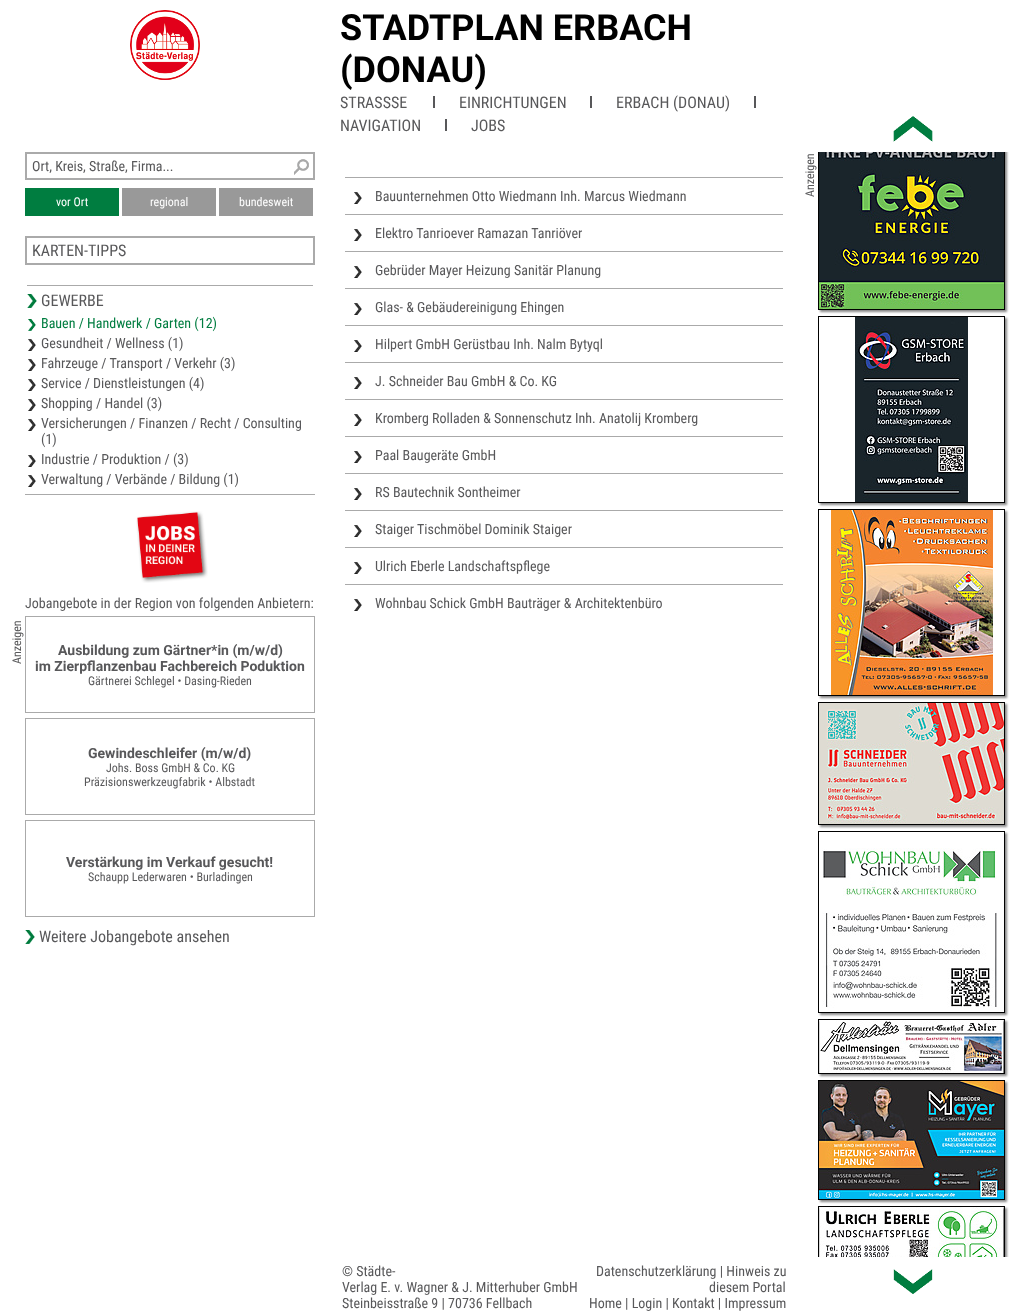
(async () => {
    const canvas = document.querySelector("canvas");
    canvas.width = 1013;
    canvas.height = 1313;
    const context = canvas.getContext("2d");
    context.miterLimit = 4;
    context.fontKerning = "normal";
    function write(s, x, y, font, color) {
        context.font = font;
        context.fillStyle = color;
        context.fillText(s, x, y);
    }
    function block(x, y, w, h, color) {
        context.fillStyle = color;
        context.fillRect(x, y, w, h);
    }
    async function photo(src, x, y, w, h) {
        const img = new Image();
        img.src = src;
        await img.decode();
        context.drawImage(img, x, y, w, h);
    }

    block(0, 0, 1013, 1313, "rgb(255, 255, 255)");
    await photo("media/1.png", 130, 10, 70, 70);
    write("STADTPLAN ERBACH", 340, 40, "bold 36px Roboto", "rgb(0, 0, 0)");
    write("(DONAU)", 340, 82, "bold 36px Roboto", "rgb(0, 0, 0)");
    write("STRASSSE", 340, 108, "16px Roboto Condensed", "rgb(88, 88, 90)");
    block(433, 96, 2, 12, "rgb(88, 88, 90)");
    write("EINRICHTUNGEN", 459, 108, "16px Roboto Condensed", "rgb(88, 88, 90)");
    block(590, 96, 2, 12, "rgb(88, 88, 90)");
    write("ERBACH (DONAU)", 616, 108, "16px Roboto Condensed", "rgb(88, 88, 90)");
    block(754, 96, 2, 12, "rgb(88, 88, 90)");
    write("NAVIGATION", 340, 131, "16px Roboto Condensed", "rgb(88, 88, 90)");
    block(445, 119, 2, 12, "rgb(88, 88, 90)");
    write("JOBS", 471, 131, "16px Roboto Condensed", "rgb(88, 88, 90)");
    await photo("media/2.png", 294, 159, 15, 16);
    context.strokeStyle = "rgb(170, 170, 170)";
    context.lineWidth = 2;
    context.strokeRect(26, 153, 288, 26);
    write("Ort, Kreis, Straße, Firma...", 32, 171, "14px Roboto Condensed", "rgb(88, 88, 90)");
    block(25, 188, 94, 28, "rgb(0, 125, 64)");
    write("vor Ort", 56, 206, "12px Roboto Condensed", "rgb(255, 255, 255)");
    block(122, 188, 94, 28, "rgb(153, 153, 153)");
    write("regional", 150, 206, "12px Roboto Condensed", "rgb(255, 255, 255)");
    block(219, 188, 94, 28, "rgb(153, 153, 153)");
    write("bundesweit", 239, 206, "12px Roboto Condensed", "rgb(255, 255, 255)");
    context.strokeRect(26, 237, 288, 27);
    write("KARTEN-TIPPS", 32, 256, "16px Roboto Condensed", "rgb(88, 88, 90)");
    await photo("media/3.png", 27, 294, 10, 14);
    block(27, 285, 286, 1, "rgb(170, 170, 170)");
    write("GEWERBE", 41, 306, "16px Roboto Condensed", "rgb(88, 88, 90)");
    await photo("media/4.png", 28, 319, 8, 12);
    write("Bauen / Handwerk / Garten (12)", 41, 328, "14px Roboto Condensed", "rgb(0, 125, 64)");
    await photo("media/5.png", 28, 339, 8, 12);
    write("Gesundheit / Wellness (1)", 41, 348, "14px Roboto Condensed", "rgb(88, 88, 90)");
    await photo("media/5.png", 28, 359, 8, 12);
    write("Fahrzeuge / Transport / Verkehr (3)", 41, 368, "14px Roboto Condensed", "rgb(88, 88, 90)");
    await photo("media/5.png", 28, 379, 8, 12);
    write("Service / Dienstleistungen (4)", 41, 388, "14px Roboto Condensed", "rgb(88, 88, 90)");
    await photo("media/5.png", 28, 399, 8, 12);
    write("Shopping / Handel (3)", 41, 408, "14px Roboto Condensed", "rgb(88, 88, 90)");
    await photo("media/5.png", 28, 419, 8, 12);
    write("Versicherungen / Finanzen / Recht / Consulting", 41, 428, "14px Roboto Condensed", "rgb(88, 88, 90)");
    write("(1)", 41, 444, "14px Roboto Condensed", "rgb(88, 88, 90)");
    await photo("media/5.png", 28, 455, 8, 12);
    write("Industrie / Produktion / (3)", 41, 464, "14px Roboto Condensed", "rgb(88, 88, 90)");
    await photo("media/5.png", 28, 475, 8, 12);
    write("Verwaltung / Verbände / Bildung (1)", 41, 484, "14px Roboto Condensed", "rgb(88, 88, 90)");
    write("Jobangebote in der Region von folgenden Anbietern:", 25, 608, "14px Roboto Condensed", "rgb(88, 88, 90)");
    await photo("media/6.png", 136, 511, 72, 72);
    block(25, 494, 290, 1, "rgb(170, 170, 170)");
    context.font = "12px Roboto Condensed";
    context.fillStyle = "rgb(88, 88, 90)";
    context.save();
    context.translate(21, 664);
    context.rotate(-90 * Math.PI / 180);
    context.fillText("Anzeigen", 0, 0);
    context.restore();
    context.lineWidth = 1;
    context.strokeRect(25.5, 616.5, 289, 96);
    write("Ausbildung zum Gärtner*in (m/w/d)", 58, 655, "bold 14px Roboto", "rgb(88, 88, 90)");
    write("im Zierpflanzenbau Fachbereich Poduktion", 35, 671, "bold 14px Roboto", "rgb(88, 88, 90)");
    write("Gärtnerei Schlegel • Dasing-Rieden", 88, 685, "12px Roboto Condensed", "rgb(88, 88, 90)");
    context.strokeRect(25.5, 718.5, 289, 96);
    write("Gewindeschleifer (m/w/d)", 88, 758, "bold 14px Roboto", "rgb(88, 88, 90)");
    write("Johs. Boss GmbH & Co. KG", 106, 772, "12px Roboto Condensed", "rgb(88, 88, 90)");
    write("Präzisionswerkzeugfabrik • Albstadt", 84, 786, "12px Roboto Condensed", "rgb(88, 88, 90)");
    context.strokeRect(25.5, 820.5, 289, 96);
    write("Verstärkung im Verkauf gesucht!", 66, 867, "bold 14px Roboto", "rgb(88, 88, 90)");
    write("Schaupp Lederwaren • Burladingen", 88, 881, "12px Roboto Condensed", "rgb(88, 88, 90)");
    await photo("media/3.png", 25, 930, 10, 14);
    write("Weitere Jobangebote ansehen", 39, 942, "16px Roboto Condensed", "rgb(88, 88, 90)");
    await photo("media/5.png", 354, 192, 8, 12);
    block(345, 177, 438, 1, "rgb(170, 170, 170)");
    write("Bauunternehmen Otto Wiedmann Inh. Marcus Wiedmann", 375, 201, "14px Roboto Condensed", "rgb(88, 88, 90)");
    await photo("media/5.png", 354, 229, 8, 12);
    block(345, 214, 438, 1, "rgb(170, 170, 170)");
    write("Elektro Tanrioever Ramazan Tanriöver", 375, 238, "14px Roboto Condensed", "rgb(88, 88, 90)");
    await photo("media/5.png", 354, 266, 8, 12);
    block(345, 251, 438, 1, "rgb(170, 170, 170)");
    write("Gebrüder Mayer Heizung Sanitär Planung", 375, 275, "14px Roboto Condensed", "rgb(88, 88, 90)");
    await photo("media/5.png", 354, 303, 8, 12);
    block(345, 288, 438, 1, "rgb(170, 170, 170)");
    write("Glas- & Gebäudereinigung Ehingen", 375, 312, "14px Roboto Condensed", "rgb(88, 88, 90)");
    await photo("media/5.png", 354, 340, 8, 12);
    block(345, 325, 438, 1, "rgb(170, 170, 170)");
    write("Hilpert GmbH Gerüstbau Inh. Nalm Bytyql", 375, 349, "14px Roboto Condensed", "rgb(88, 88, 90)");
    await photo("media/5.png", 354, 377, 8, 12);
    block(345, 362, 438, 1, "rgb(170, 170, 170)");
    write("J. Schneider Bau GmbH & Co. KG", 375, 386, "14px Roboto Condensed", "rgb(88, 88, 90)");
    await photo("media/5.png", 354, 414, 8, 12);
    block(345, 399, 438, 1, "rgb(170, 170, 170)");
    write("Kromberg Rolladen & Sonnenschutz Inh. Anatolij Kromberg", 375, 423, "14px Roboto Condensed", "rgb(88, 88, 90)");
    await photo("media/5.png", 354, 451, 8, 12);
    block(345, 436, 438, 1, "rgb(170, 170, 170)");
    write("Paal Baugeräte GmbH", 375, 460, "14px Roboto Condensed", "rgb(88, 88, 90)");
    await photo("media/5.png", 354, 488, 8, 12);
    block(345, 473, 438, 1, "rgb(170, 170, 170)");
    write("RS Bautechnik Sontheimer", 375, 497, "14px Roboto Condensed", "rgb(88, 88, 90)");
    await photo("media/5.png", 354, 525, 8, 12);
    block(345, 510, 438, 1, "rgb(170, 170, 170)");
    write("Staiger Tischmöbel Dominik Staiger", 375, 534, "14px Roboto Condensed", "rgb(88, 88, 90)");
    await photo("media/5.png", 354, 562, 8, 12);
    block(345, 547, 438, 1, "rgb(170, 170, 170)");
    write("Ulrich Eberle Landschaftspflege", 375, 571, "14px Roboto Condensed", "rgb(88, 88, 90)");
    await photo("media/5.png", 354, 599, 8, 12);
    block(345, 584, 438, 1, "rgb(170, 170, 170)");
    write("Wohnbau Schick GmbH Bauträger & Architektenbüro", 375, 608, "14px Roboto Condensed", "rgb(88, 88, 90)");
    await photo("media/7.png", 893, 116, 40, 26);
    context.save();
    context.beginPath();
    context.rect(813, 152, 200, 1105);
    context.clip();
    context.fillStyle = "rgb(136, 136, 136)";
    context.filter = "blur(1px)";
    context.beginPath();
    context.rect(820, 130, 187, 182);
    context.fill();
    context.filter = "none";
    context.restore();
    context.font = "12px Roboto Condensed";
    context.save();
    context.translate(814, 197);
    context.rotate(-90 * Math.PI / 180);
    context.fillText("Anzeigen", 0, 0);
    context.restore();
    context.save();
    context.beginPath();
    context.rect(813, 152, 200, 1105);
    context.clip();
    context.strokeStyle = "rgb(0, 0, 0)";
    context.strokeRect(818.5, 128.5, 186, 181);
    context.restore();
    await photo("media/8.png", 819, 152, 185, 157);
    context.save();
    context.beginPath();
    context.moveTo(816, 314);
    context.lineTo(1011, 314);
    context.lineTo(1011, 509);
    context.lineTo(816, 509);
    context.closePath();
    context.moveTo(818, 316);
    context.lineTo(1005, 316);
    context.lineTo(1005, 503);
    context.lineTo(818, 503);
    context.closePath();
    context.clip("evenodd");
    context.fillStyle = "rgb(136, 136, 136)";
    context.filter = "blur(1px)";
    context.beginPath();
    context.rect(820, 318, 187, 187);
    context.fill();
    context.filter = "none";
    context.restore();
    context.strokeStyle = "rgb(0, 0, 0)";
    context.strokeRect(818.5, 316.5, 186, 186);
    await photo("media/9.png", 855, 317, 113, 185);
    context.save();
    context.beginPath();
    context.moveTo(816, 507);
    context.lineTo(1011, 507);
    context.lineTo(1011, 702);
    context.lineTo(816, 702);
    context.closePath();
    context.moveTo(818, 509);
    context.lineTo(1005, 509);
    context.lineTo(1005, 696);
    context.lineTo(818, 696);
    context.closePath();
    context.clip("evenodd");
    context.fillStyle = "rgb(136, 136, 136)";
    context.filter = "blur(1px)";
    context.beginPath();
    context.rect(820, 511, 187, 187);
    context.fill();
    context.filter = "none";
    context.restore();
    context.strokeRect(818.5, 509.5, 186, 186);
    await photo("media/10.png", 831, 510, 162, 185);
    context.fillStyle = "rgb(136, 136, 136)";
    context.filter = "blur(1px)";
    context.beginPath();
    context.rect(820, 704, 187, 123);
    context.fill();
    context.filter = "none";
    context.strokeRect(818.5, 702.5, 186, 122);
    await photo("media/11.png", 819, 703, 185, 121);
    context.save();
    context.beginPath();
    context.moveTo(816, 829);
    context.lineTo(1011, 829);
    context.lineTo(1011, 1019);
    context.lineTo(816, 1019);
    context.closePath();
    context.moveTo(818, 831);
    context.lineTo(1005, 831);
    context.lineTo(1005, 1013);
    context.lineTo(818, 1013);
    context.closePath();
    context.clip("evenodd");
    context.filter = "blur(1px)";
    context.beginPath();
    context.rect(820, 833, 187, 182);
    context.fill();
    context.filter = "none";
    context.restore();
    context.strokeRect(818.5, 831.5, 186, 181);
    await photo("media/12.png", 822, 848, 175, 160);
    context.filter = "blur(1px)";
    context.beginPath();
    context.rect(820, 1021, 187, 55);
    context.fill();
    context.filter = "none";
    context.strokeRect(818.5, 1019.5, 186, 54);
    await photo("media/13.png", 820, 1020, 183, 53);
    context.filter = "blur(1px)";
    context.beginPath();
    context.rect(820, 1082, 187, 120);
    context.fill();
    context.filter = "none";
    context.strokeRect(818.5, 1080.5, 186, 119);
    await photo("media/14.png", 819, 1081, 185, 118);
    await photo("media/16.png", 893, 1269, 40, 25);
    context.save();
    context.beginPath();
    context.rect(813, 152, 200, 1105);
    context.clip();
    context.filter = "blur(1px)";
    context.beginPath();
    context.rect(820, 1208, 187, 70);
    context.fill();
    context.filter = "none";
    context.restore();
    context.save();
    context.beginPath();
    context.rect(813, 152, 200, 1105);
    context.clip();
    context.strokeRect(818.5, 1206.5, 186, 69);
    context.restore();
    await photo("media/15.png", 820, 1207, 183, 50);
    write("© Städte-", 342, 1276, "14px Roboto Condensed", "rgb(88, 88, 90)");
    write("Verlag E. v. Wagner & J. Mitterhuber GmbH", 342, 1292, "14px Roboto Condensed", "rgb(88, 88, 90)");
    write("Steinbeisstraße 9 | 70736 Fellbach", 342, 1308, "14px Roboto Condensed", "rgb(88, 88, 90)");
    write("Datenschutzerklärung | Hinweis zu", 596, 1276, "14px Roboto Condensed", "rgb(88, 88, 90)");
    write("diesem Portal", 709, 1292, "14px Roboto Condensed", "rgb(88, 88, 90)");
    write("Home | Login | Kontakt | Impressum", 589, 1308, "14px Roboto Condensed", "rgb(88, 88, 90)");
})();
